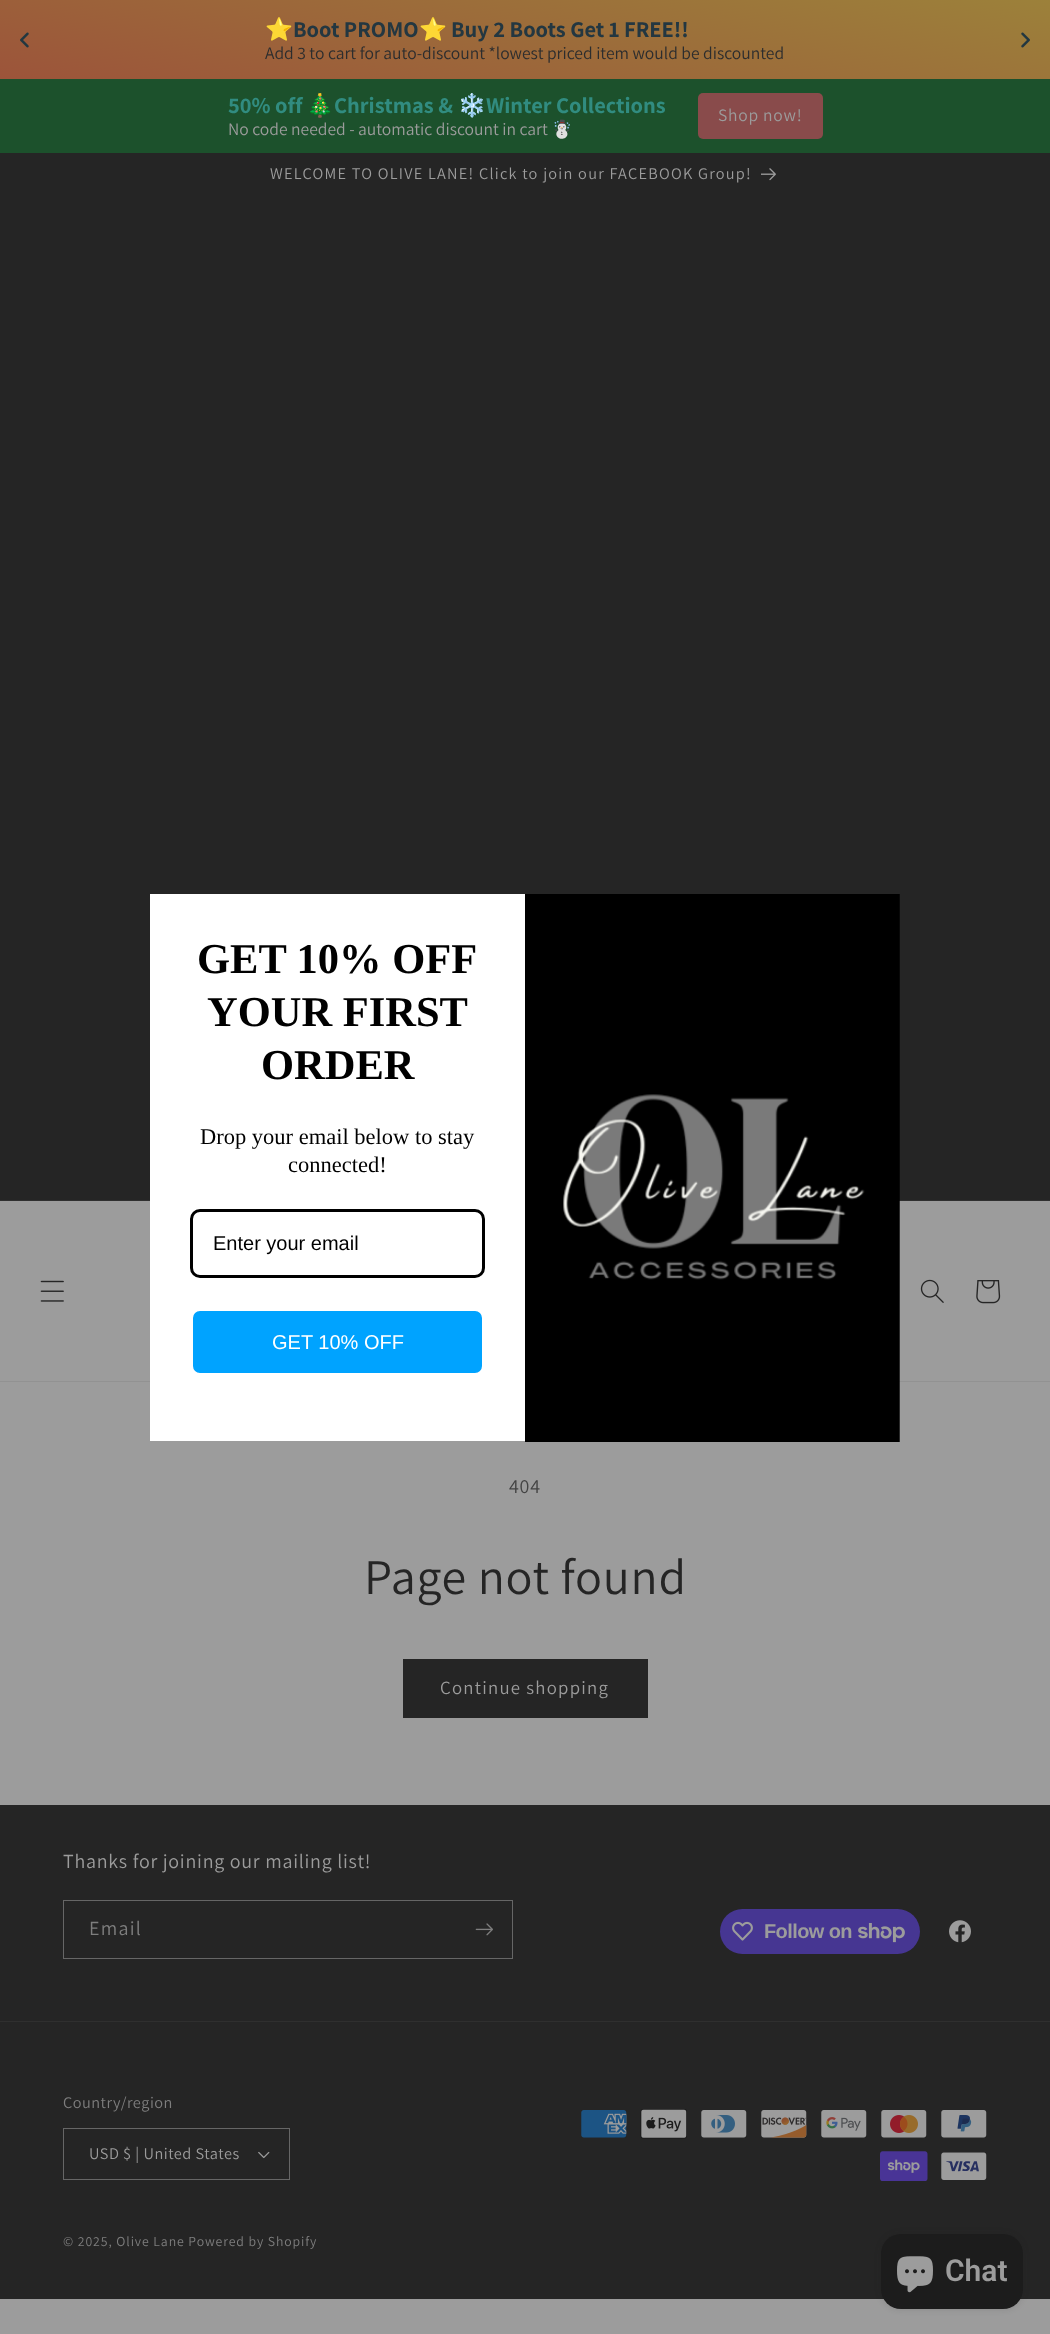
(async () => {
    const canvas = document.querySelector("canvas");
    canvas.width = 1050;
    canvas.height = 2334;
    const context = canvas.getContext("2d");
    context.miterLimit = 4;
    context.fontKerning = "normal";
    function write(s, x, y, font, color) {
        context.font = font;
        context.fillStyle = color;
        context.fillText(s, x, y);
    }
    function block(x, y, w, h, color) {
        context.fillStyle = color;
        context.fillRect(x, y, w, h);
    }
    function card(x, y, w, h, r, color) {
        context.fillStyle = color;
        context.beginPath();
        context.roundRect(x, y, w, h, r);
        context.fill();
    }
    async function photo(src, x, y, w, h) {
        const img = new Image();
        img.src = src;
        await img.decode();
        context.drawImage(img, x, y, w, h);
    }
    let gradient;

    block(0, 0, 1050, 2334, "rgb(156, 156, 156)");
    gradient = context.createLinearGradient(490, 192, 560, -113);
    gradient.addColorStop(0, "rgb(156, 84, 58)");
    gradient.addColorStop(1, "rgb(156, 129, 58)");
    context.fillStyle = gradient;
    context.fillRect(0, 0, 1050, 79);
    write("⭐", 265, 37, "bold 22.5px Noto Color Emoji", "rgb(35, 55, 65)");
    write("Boot PROMO", 293, 37, "bold 22.5px Assistant", "rgb(35, 55, 65)");
    write("⭐", 419, 37, "bold 22.5px Noto Color Emoji", "rgb(35, 55, 65)");
    write("Buy 2 Boots Get 1 FREE!!", 451, 37, "bold 22.5px Assistant", "rgb(35, 55, 65)");
    write("Add 3 to cart for auto-discount *lowest priced item would be discounted", 265, 59, "17.5px Assistant", "rgb(44, 45, 46)");
    await photo("media/1.png", 20, 32, 9, 16);
    await photo("media/2.png", 1021, 32, 9, 16);
    block(0, 79, 1050, 74, "rgb(28, 81, 44)");
    write("50% off", 228, 113, "bold 22.5px Assistant", "rgb(49, 140, 128)");
    write("🎄", 306, 113, "bold 22.5px Noto Color Emoji", "rgb(49, 140, 128)");
    write("Christmas &", 334, 113, "bold 22.5px Assistant", "rgb(49, 140, 128)");
    write("❄️", 458, 113, "bold 22.5px Noto Color Emoji", "rgb(49, 140, 128)");
    write("Winter Collections", 486, 113, "bold 22.5px Assistant", "rgb(49, 140, 128)");
    write("No code needed - automatic discount in cart", 228, 135, "17.5px Assistant", "rgb(156, 156, 156)");
    write("☃️", 551, 135, "17.5px Noto Color Emoji", "rgb(156, 156, 156)");
    card(698, 93, 125, 46, 5, "rgb(137, 75, 75)");
    context.letterSpacing = "0.75px";
    write("Shop now!", 718, 121, "17.5px Assistant", "rgb(156, 156, 156)");
    block(0, 153, 1050, 1047, "rgb(37, 37, 37)");
    block(0, 1200, 1050, 1, "rgb(47, 47, 47)");
    context.letterSpacing = "1.25px";
    write("WELCOME TO OLIVE LANE! Click to join our FACEBOOK Group!", 270, 179, "16.25px Assistant", "rgb(156, 156, 156)");
    await photo("media/3.png", 761, 168, 15, 13);
    block(0, 1381, 1050, 1, "rgb(146, 146, 146)");
    block(150, 894, 375, 547, "rgb(255, 255, 255)");
    context.letterSpacing = "0px";
    write("GET 10% OFF", 197, 973, "bold 42.5px Liberation Serif", "rgb(0, 0, 0)");
    write("YOUR FIRST", 207, 1026, "bold 42.5px Liberation Serif", "rgb(0, 0, 0)");
    write("ORDER", 261, 1079, "bold 42.5px Liberation Serif", "rgb(0, 0, 0)");
    write("Drop your email below to stay", 200, 1144, "22.5px Liberation Serif", "rgb(0, 0, 0)");
    write("connected!", 288, 1172, "22.5px Liberation Serif", "rgb(0, 0, 0)");
    context.beginPath();
    context.roundRect(191.5, 1210.5, 292, 66, 8.5);
    context.strokeStyle = "rgb(0, 0, 0)";
    context.lineWidth = 3;
    context.stroke();
    write("Enter your email", 213, 1250, "20px Liberation Sans", "rgb(0, 0, 0)");
    context.fillStyle = "rgb(0, 163, 255)";
    context.beginPath();
    context.roundRect(191.5, 1309.5, 292, 65, 8.5);
    context.fill();
    context.strokeStyle = "rgb(255, 255, 255)";
    context.stroke();
    write("GET 10% OFF", 272, 1349, "20px Liberation Sans", "rgb(255, 255, 255)");
    await photo("media/4.png", 525, 894, 375, 548);
    await photo("media/5.png", 40, 1280, 24, 22);
    await photo("media/6.png", 920, 1279, 24, 24);
    await photo("media/7.png", 976, 1280, 25, 24);
    context.letterSpacing = "0.75px";
    write("404", 509, 1493, "20px Assistant", "rgb(67, 67, 67)");
    write("Page not found", 364, 1594, "50px Assistant", "rgb(37, 37, 37)");
    block(403, 1659, 245, 59, "rgb(37, 37, 37)");
    context.letterSpacing = "1.25px";
    write("Continue shopping", 440, 1694, "18.75px Assistant", "rgb(156, 156, 156)");
    block(0, 1805, 1050, 494, "rgb(37, 37, 37)");
    context.letterSpacing = "0.75px";
    write("Thanks for joining our mailing list!", 63, 1868, "20px Assistant", "rgb(156, 156, 156)");
    context.strokeStyle = "rgb(102, 102, 102)";
    context.lineWidth = 1;
    context.strokeRect(63.5, 1900.5, 449, 58);
    context.letterSpacing = "1.25px";
    write("Email", 89, 1935, "20px Assistant", "rgb(126, 126, 126)");
    await photo("media/8.png", 475, 1923, 18, 13);
    card(720, 1909, 200, 45, 22.5, "rgb(70, 54, 146)");
    await photo("media/9.png", 732, 1921, 21, 20);
    context.letterSpacing = "-0.6px";
    write("Follow on", 764, 1938, "bold 20px Liberation Sans", "rgb(156, 156, 156)");
    await photo("media/10.png", 858, 1923, 47, 20);
    await photo("media/11.png", 949, 1920, 22, 23);
    block(0, 2021, 1050, 1, "rgb(47, 47, 47)");
    context.letterSpacing = "0.5px";
    write("Country/region", 63, 2108, "16.25px Assistant", "rgb(126, 126, 126)");
    await photo("media/12.png", 258, 2151, 12, 8);
    context.strokeRect(63.5, 2128.5, 226, 51);
    write("USD $ | United States", 89, 2159, "16.25px Assistant", "rgb(156, 156, 156)");
    await photo("media/13.png", 581, 2110, 46, 28);
    await photo("media/14.png", 640, 2109, 47, 30);
    await photo("media/15.png", 701, 2110, 46, 28);
    await photo("media/16.png", 761, 2110, 46, 28);
    await photo("media/17.png", 821, 2110, 46, 28);
    await photo("media/18.png", 881, 2110, 46, 28);
    await photo("media/19.png", 941, 2110, 46, 28);
    await photo("media/20.png", 880, 2151, 48, 30);
    await photo("media/21.png", 941, 2152, 46, 28);
    context.letterSpacing = "0.9px";
    write("© 2025, Olive Lane Powered by Shopify", 63, 2246, "13.75px Assistant", "rgb(126, 126, 126)");
    context.fillStyle = "rgba(28, 28, 28, 0.15)";
    context.filter = "blur(3px)";
    context.beginPath();
    context.roundRect(881, 2234, 142, 75, 20);
    context.fill();
    context.filter = "none";
    card(881, 2234, 142, 75, 20, "rgb(28, 28, 28)");
    await photo("media/22.png", 897, 2256, 36, 37);
    context.letterSpacing = "0px";
    write("Chat", 945, 2281, "600 30px Roboto", "rgb(156, 156, 156)");
})();
